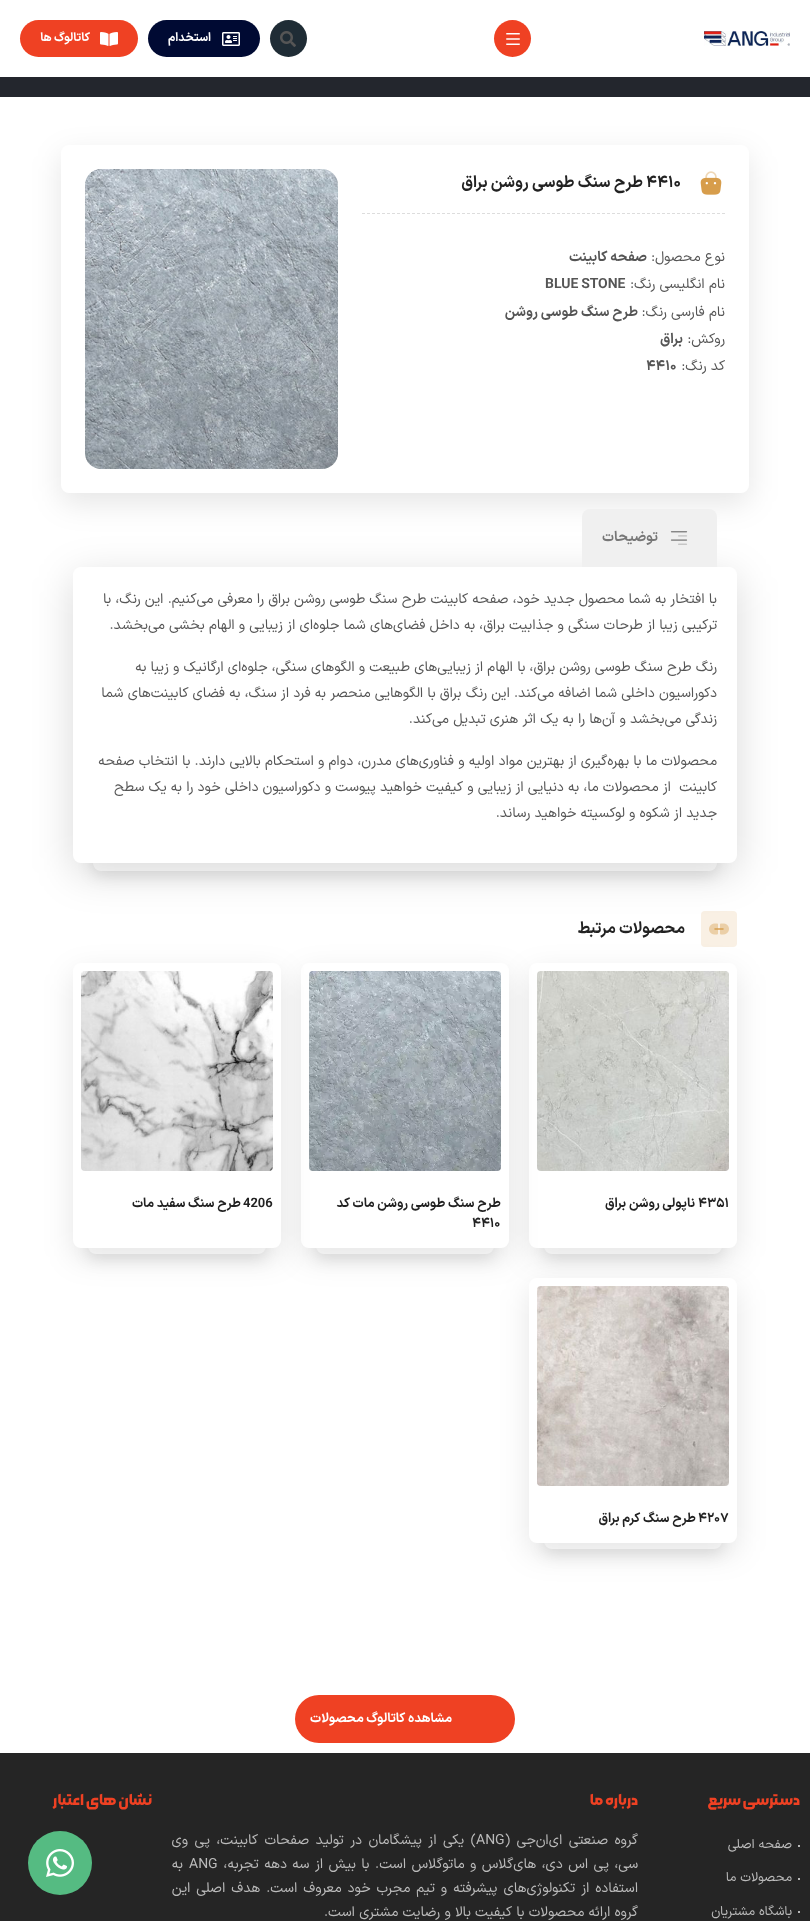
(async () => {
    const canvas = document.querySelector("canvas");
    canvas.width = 810;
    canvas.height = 1921;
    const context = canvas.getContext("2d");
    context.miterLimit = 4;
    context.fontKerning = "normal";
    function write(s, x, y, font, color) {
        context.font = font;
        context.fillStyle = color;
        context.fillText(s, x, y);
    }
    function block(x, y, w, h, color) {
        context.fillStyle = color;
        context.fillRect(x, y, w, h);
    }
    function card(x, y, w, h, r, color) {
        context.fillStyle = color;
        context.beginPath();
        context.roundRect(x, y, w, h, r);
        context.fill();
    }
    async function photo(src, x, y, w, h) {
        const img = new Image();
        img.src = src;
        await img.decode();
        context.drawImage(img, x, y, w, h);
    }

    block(0, 0, 810, 1921, "rgb(255, 255, 255)");
    block(0, 77, 810, 20, "rgb(35, 38, 45)");
    await photo("media/1.png", 704, 31, 86, 15);
    context.fillStyle = "rgb(239, 65, 35)";
    context.beginPath();
    context.arc(512.5, 38.5, 18.5, 0, Math.PI * 2);
    context.fill();
    await photo("media/2.png", 506, 33, 14, 12);
    context.fillStyle = "rgb(31, 44, 53)";
    context.beginPath();
    context.arc(288.5, 38.5, 18.5, 0, Math.PI * 2);
    context.fill();
    await photo("media/3.png", 280, 31, 16, 16);
    card(148, 20, 112, 37, 18.5, "rgb(0, 10, 51)");
    await photo("media/4.png", 222, 32, 18, 14);
    context.direction = "rtl";
    write("استخدام", 211, 41, "bold 12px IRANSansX", "rgb(255, 255, 255)");
    card(20, 20, 118, 37, 18.5, "rgb(239, 65, 35)");
    await photo("media/5.png", 100, 32, 18, 14);
    write("کاتالوگ ها", 90, 41, "bold 12px IRANSansX", "rgb(255, 255, 255)");
    block(0, 1753, 810, 168, "rgb(37, 37, 37)");
    context.fillStyle = "rgb(85, 187, 130)";
    context.beginPath();
    context.arc(60, 1863, 32, 0, Math.PI * 2);
    context.fill();
    await photo("media/6.png", 46, 1849, 28, 28);
    context.fillStyle = "rgba(0, 0, 0, 0.1)";
    context.filter = "blur(15px)";
    context.beginPath();
    context.roundRect(61, 155, 688, 348, 8);
    context.fill();
    context.filter = "none";
    card(61, 145, 688, 348, 8, "rgb(255, 255, 255)");
    context.beginPath();
    context.moveTo(362, 213.5);
    context.lineTo(725, 213.5);
    context.strokeStyle = "rgb(221, 221, 221)";
    context.setLineDash([3, 2]);
    context.stroke();
    await photo("media/7.png", 700, 171, 22, 24);
    context.direction = "ltr";
    write("4410", 646, 187, "bold 16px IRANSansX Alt", "rgb(34, 34, 34)");
    context.direction = "rtl";
    write("طرح سنگ طوسی روشن براق", 643, 187, "bold 16px IRANSansX", "rgb(34, 34, 34)");
    write("نوع محصول:", 725, 261, "14px IRANSansX", "rgb(85, 85, 85)");
    write("صفحه کابینت", 647, 261, "bold 14px IRANSansX", "rgb(85, 85, 85)");
    write("نام انگلیسی رنگ:", 725, 288, "14px IRANSansX", "rgb(85, 85, 85)");
    context.direction = "ltr";
    write("BLUE STONE", 545, 288, "bold 14px IRANSansX", "rgb(85, 85, 85)");
    context.direction = "rtl";
    write("نام فارسی رنگ:", 725, 316, "14px IRANSansX", "rgb(85, 85, 85)");
    write("طرح سنگ طوسی روشن", 638, 316, "bold 14px IRANSansX", "rgb(85, 85, 85)");
    write("روکش:", 725, 343, "14px IRANSansX", "rgb(85, 85, 85)");
    write("براق", 683, 343, "bold 14px IRANSansX", "rgb(85, 85, 85)");
    write("کد رنگ:", 725, 370, "14px IRANSansX", "rgb(85, 85, 85)");
    context.direction = "ltr";
    write("4410", 646, 370, "bold 14px IRANSansX Alt", "rgb(85, 85, 85)");
    await photo("media/8.png", 85, 169, 253, 300);
    context.fillStyle = "rgba(0, 0, 0, 0.1)";
    context.filter = "blur(8px)";
    context.beginPath();
    context.roundRect(93, 826, 624, 50, 8);
    context.fill();
    context.filter = "none";
    card(93, 821, 624, 50, 8, "rgb(255, 255, 255)");
    card(701, 911, 36, 36, 4, "rgb(249, 240, 228)");
    await photo("media/10.png", 709, 923, 20, 12);
    context.fillStyle = "rgba(0, 0, 0, 0.15)";
    context.filter = "blur(20px)";
    context.beginPath();
    context.roundRect(73, 577, 664, 296, 8);
    context.fill();
    context.filter = "none";
    context.fillStyle = "rgb(240, 240, 240)";
    context.beginPath();
    context.roundRect(582, 509, 135, 58, [8, 8, 0, 0]);
    context.fill();
    await photo("media/9.png", 670, 531, 18, 14);
    context.direction = "rtl";
    write("توضیحات", 658, 541, "bold 14px IRANSansX", "rgb(119, 119, 119)");
    card(73, 567, 664, 296, 8, "rgb(255, 255, 255)");
    write("با افتخار به شما محصول جدید خود، صفحه کابینت طرح سنگ طوسی روشن براق را معرفی می‌کنیم. این رنگ، با", 717, 603, "14px IRANSansX", "rgb(85, 85, 85)");
    write("ترکیبی زیبا از طرحات سنگی و جذابیت براق، به داخل فضای‌های شما جلوه‌ای از زیبایی و الهام بخشی می‌بخشد.", 717, 629, "14px IRANSansX", "rgb(85, 85, 85)");
    write("رنگ طرح سنگ طوسی روشن براق، با الهام از زیبایی‌های طبیعت و الگوهای سنگی، جلوه‌ای ارگانیک و زیبا به", 717, 671, "14px IRANSansX", "rgb(85, 85, 85)");
    write("دکوراسیون داخلی شما اضافه می‌کند. این رنگ براق با الگوهایی منحصر به فرد از سنگ، به فضای کابینت‌های شما", 717, 697, "14px IRANSansX", "rgb(85, 85, 85)");
    write("زندگی می‌بخشد و آن‌ها را به یک اثر هنری تبدیل می‌کند.", 717, 723, "14px IRANSansX", "rgb(85, 85, 85)");
    write("محصولات ما با بهره‌گیری از بهترین مواد اولیه و فناوری‌های مدرن، دوام و استحکام بالایی دارند. با انتخاب صفحه", 717, 765, "14px IRANSansX", "rgb(85, 85, 85)");
    write("کابینت  از محصولات ما، به دنیایی از زیبایی و کیفیت خواهید پیوست و دکوراسیون داخلی خود را به یک سطح", 717, 791, "14px IRANSansX", "rgb(85, 85, 85)");
    write("جدید از شکوه و لوکسیته خواهید رساند.", 717, 817, "14px IRANSansX", "rgb(85, 85, 85)");
    write("محصولات مرتبط", 685, 933, "bold 16px IRANSansX", "rgb(34, 34, 34)");
    context.fillStyle = "rgba(0, 0, 0, 0.1)";
    context.filter = "blur(8px)";
    context.beginPath();
    context.roundRect(544, 1239, 178, 20, 8);
    context.fill();
    context.filter = "none";
    card(544, 1234, 178, 20, 8, "rgb(255, 255, 255)");
    context.fillStyle = "rgba(0, 0, 0, 0.1)";
    context.filter = "blur(8px)";
    context.beginPath();
    context.roundRect(316, 1239, 178, 20, 8);
    context.fill();
    context.filter = "none";
    card(316, 1234, 178, 20, 8, "rgb(255, 255, 255)");
    context.fillStyle = "rgba(0, 0, 0, 0.1)";
    context.filter = "blur(15px)";
    context.beginPath();
    context.roundRect(529, 973, 208, 285, 8);
    context.fill();
    context.filter = "none";
    card(529, 963, 208, 285, 8, "rgb(255, 255, 255)");
    await photo("media/11.png", 537, 971, 192, 200);
    context.direction = "ltr";
    write("4351", 698, 1207, "bold 13px IRANSansX Alt", "rgb(34, 34, 34)");
    context.direction = "rtl";
    write("ناپولی روشن براق", 695, 1207, "bold 13px IRANSansX", "rgb(34, 34, 34)");
    context.fillStyle = "rgba(0, 0, 0, 0.1)";
    context.filter = "blur(8px)";
    context.beginPath();
    context.roundRect(88, 1239, 178, 20, 8);
    context.fill();
    context.filter = "none";
    card(88, 1234, 178, 20, 8, "rgb(255, 255, 255)");
    context.fillStyle = "rgba(0, 0, 0, 0.1)";
    context.filter = "blur(15px)";
    context.beginPath();
    context.roundRect(301, 973, 208, 285, 8);
    context.fill();
    context.filter = "none";
    card(301, 963, 208, 285, 8, "rgb(255, 255, 255)");
    await photo("media/12.png", 309, 971, 192, 200);
    write("طرح سنگ طوسی روشن مات کد", 501, 1207, "bold 13px IRANSansX", "rgb(34, 34, 34)");
    context.direction = "ltr";
    write("4410", 472, 1227, "bold 13px IRANSansX Alt", "rgb(34, 34, 34)");
    context.fillStyle = "rgba(0, 0, 0, 0.1)";
    context.filter = "blur(15px)";
    context.beginPath();
    context.roundRect(73, 973, 208, 285, 8);
    context.fill();
    context.filter = "none";
    card(73, 963, 208, 285, 8, "rgb(255, 255, 255)");
    await photo("media/13.png", 81, 971, 192, 200);
    write("4206", 243, 1207, "bold 13px IRANSansX", "rgb(34, 34, 34)");
    context.direction = "rtl";
    write("طرح سنگ سفید مات", 241, 1207, "bold 13px IRANSansX", "rgb(34, 34, 34)");
    context.fillStyle = "rgba(0, 0, 0, 0.1)";
    context.filter = "blur(8px)";
    context.beginPath();
    context.roundRect(544, 1534, 178, 20, 8);
    context.fill();
    context.filter = "none";
    card(544, 1529, 178, 20, 8, "rgb(255, 255, 255)");
    context.fillStyle = "rgba(0, 0, 0, 0.1)";
    context.filter = "blur(15px)";
    context.beginPath();
    context.roundRect(529, 1288, 208, 265, 8);
    context.fill();
    context.filter = "none";
    card(529, 1278, 208, 265, 8, "rgb(255, 255, 255)");
    await photo("media/14.png", 537, 1286, 192, 200);
    context.direction = "ltr";
    write("4207", 698, 1522, "bold 13px IRANSansX Alt", "rgb(34, 34, 34)");
    context.direction = "rtl";
    write("طرح سنگ کرم براق", 696, 1522, "bold 13px IRANSansX", "rgb(34, 34, 34)");
    card(295, 1695, 220, 48, 24, "rgb(239, 65, 35)");
    write("مشاهده کاتالوگ محصولات", 452, 1722, "bold 13px IRANSansX", "rgb(255, 255, 255)");
    write("دسترسی سریع", 800, 1805, "bold 16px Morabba", "rgb(239, 65, 35)");
    context.fillStyle = "rgb(234, 234, 234)";
    context.beginPath();
    context.arc(799, 1846, 1, 0, Math.PI * 2);
    context.fill();
    write("صفحه اصلی", 792, 1848, "13px IRANSansX", "rgb(187, 187, 187)");
    context.fillStyle = "rgb(234, 234, 234)";
    context.beginPath();
    context.arc(799, 1879, 1, 0, Math.PI * 2);
    context.fill();
    write("محصولات ما", 792, 1881, "13px IRANSansX", "rgb(187, 187, 187)");
    context.fillStyle = "rgb(234, 234, 234)";
    context.beginPath();
    context.arc(799, 1912, 1, 0, Math.PI * 2);
    context.fill();
    write("باشگاه مشتریان", 792, 1915, "13px IRANSansX", "rgb(187, 187, 187)");
    write("درباره ما", 638, 1805, "bold 16px Morabba", "rgb(239, 65, 35)");
    context.wordSpacing = "2.25px";
    write("گروه صنعتی ای‌ان‌جی (", 638, 1844, "14px IRANSansX", "rgb(187, 187, 187)");
    context.wordSpacing = "0px";
    context.direction = "ltr";
    write("ANG", 476, 1844, "14px IRANSansX", "rgb(187, 187, 187)");
    context.wordSpacing = "2.25px";
    context.direction = "rtl";
    write(") یکی از پیشگامان در تولید صفحات کابینت، پی وی", 476, 1844, "14px IRANSansX", "rgb(187, 187, 187)");
    context.wordSpacing = "1.25px";
    write("سی، پی اس دی، های‌گلاس و ماتوگلاس است. با بیش از سه دهه تجربه،", 638, 1868, "14px IRANSansX", "rgb(187, 187, 187)");
    context.wordSpacing = "0px";
    context.direction = "ltr";
    write("ANG", 189, 1868, "14px IRANSansX", "rgb(187, 187, 187)");
    context.direction = "rtl";
    write("به", 183, 1868, "14px IRANSansX", "rgb(187, 187, 187)");
    context.wordSpacing = "1.75px";
    write("استفاده از تکنولوژی‌های پیشرفته و تیم مجرب خود معروف است. هدف اصلی این", 638, 1892, "14px IRANSansX", "rgb(187, 187, 187)");
    context.wordSpacing = "0px";
    write("گروه ارائه محصولات با کیفیت بالا و رضایت مشتری است.", 638, 1916, "14px IRANSansX", "rgb(187, 187, 187)");
    write("نشان های اعتبار", 152, 1805, "bold 16px Morabba", "rgb(239, 65, 35)");
})();
